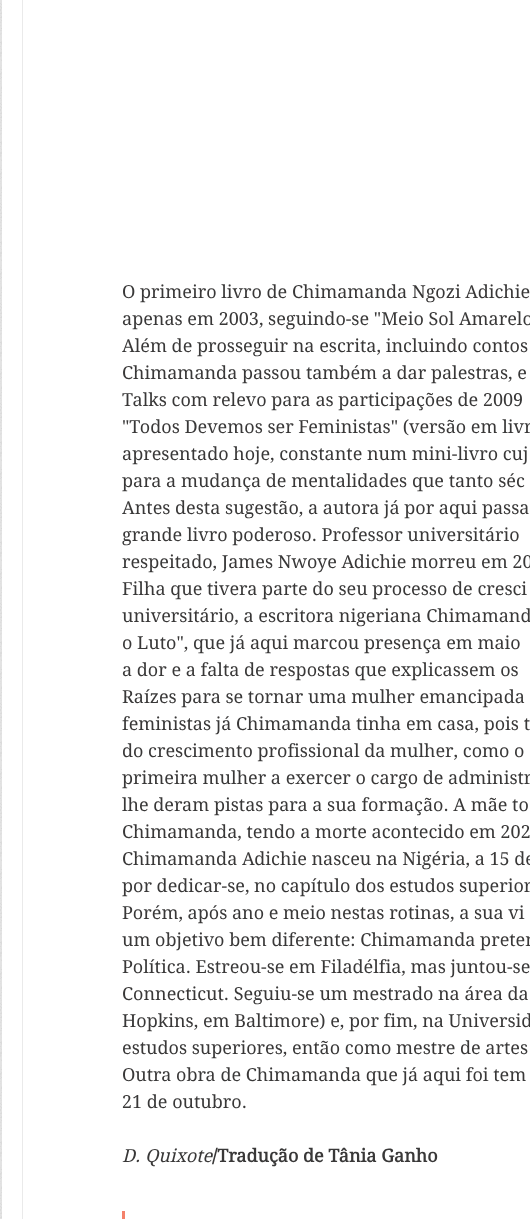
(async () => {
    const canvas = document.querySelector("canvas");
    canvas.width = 530;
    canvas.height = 1219;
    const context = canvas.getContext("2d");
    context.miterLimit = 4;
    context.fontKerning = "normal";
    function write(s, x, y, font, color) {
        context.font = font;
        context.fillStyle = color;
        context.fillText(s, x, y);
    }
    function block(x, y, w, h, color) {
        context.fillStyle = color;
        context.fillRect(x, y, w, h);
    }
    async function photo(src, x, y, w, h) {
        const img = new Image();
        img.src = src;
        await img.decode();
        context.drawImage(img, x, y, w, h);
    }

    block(0, 0, 530, 1219, "rgb(227, 227, 227)");
    await photo("media/1.png", 0, 3, 2, 1215);
    block(2, 0, 528, 1219, "rgb(255, 255, 255)");
    context.strokeStyle = "rgb(234, 234, 234)";
    context.strokeRect(22.5, -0.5, 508, 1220);
    write("O primeiro livro de Chimamanda Ngozi Adichie", 122, 298, "18px 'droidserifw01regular'", "rgb(57, 56, 56)");
    write("apenas em 2003, seguindo-se \"Meio Sol Amarelo", 122, 325, "18px 'droidserifw01regular'", "rgb(57, 56, 56)");
    write("Além de prosseguir na escrita, incluindo contos", 122, 352, "18px 'droidserifw01regular'", "rgb(57, 56, 56)");
    write("Chimamanda passou também a dar palestras, e", 122, 379, "18px 'droidserifw01regular'", "rgb(57, 56, 56)");
    write("Talks com relevo para as participações de 2009", 122, 406, "18px 'droidserifw01regular'", "rgb(57, 56, 56)");
    write("\"Todos Devemos ser Feministas\" (versão em livr", 122, 433, "18px 'droidserifw01regular'", "rgb(57, 56, 56)");
    write("apresentado hoje, constante num mini-livro cuj", 122, 460, "18px 'droidserifw01regular'", "rgb(57, 56, 56)");
    write("para a mudança de mentalidades que tanto séc", 122, 487, "18px 'droidserifw01regular'", "rgb(57, 56, 56)");
    write("Antes desta sugestão, a autora já por aqui passa", 122, 514, "18px 'droidserifw01regular'", "rgb(57, 56, 56)");
    write("grande livro poderoso. Professor universitário", 122, 541, "18px 'droidserifw01regular'", "rgb(57, 56, 56)");
    write("respeitado, James Nwoye Adichie morreu em 20", 122, 568, "18px 'droidserifw01regular'", "rgb(57, 56, 56)");
    write("Filha que tivera parte do seu processo de cresci", 122, 595, "18px 'droidserifw01regular'", "rgb(57, 56, 56)");
    write("universitário, a escritora nigeriana Chimamand", 122, 622, "18px 'droidserifw01regular'", "rgb(57, 56, 56)");
    write("o Luto\", que já aqui marcou presença em maio", 122, 649, "18px 'droidserifw01regular'", "rgb(57, 56, 56)");
    write("a dor e a falta de respostas que explicassem os", 122, 676, "18px 'droidserifw01regular'", "rgb(57, 56, 56)");
    write("Raízes para se tornar uma mulher emancipada", 122, 703, "18px 'droidserifw01regular'", "rgb(57, 56, 56)");
    write("feministas já Chimamanda tinha em casa, pois t", 122, 730, "18px 'droidserifw01regular'", "rgb(57, 56, 56)");
    write("do crescimento profissional da mulher, como o", 122, 757, "18px 'droidserifw01regular'", "rgb(57, 56, 56)");
    write("primeira mulher a exercer o cargo de administr", 122, 784, "18px 'droidserifw01regular'", "rgb(57, 56, 56)");
    write("lhe deram pistas para a sua formação. A mãe to", 122, 811, "18px 'droidserifw01regular'", "rgb(57, 56, 56)");
    write("Chimamanda, tendo a morte acontecido em 202", 122, 838, "18px 'droidserifw01regular'", "rgb(57, 56, 56)");
    write("Chimamanda Adichie nasceu na Nigéria, a 15 de", 122, 865, "18px 'droidserifw01regular'", "rgb(57, 56, 56)");
    write("por dedicar-se, no capítulo dos estudos superior", 122, 892, "18px 'droidserifw01regular'", "rgb(57, 56, 56)");
    write("Porém, após ano e meio nestas rotinas, a sua vi", 122, 919, "18px 'droidserifw01regular'", "rgb(57, 56, 56)");
    write("um objetivo bem diferente: Chimamanda preten", 122, 946, "18px 'droidserifw01regular'", "rgb(57, 56, 56)");
    write("Política. Estreou-se em Filadélfia, mas juntou-se", 122, 973, "18px 'droidserifw01regular'", "rgb(57, 56, 56)");
    write("Connecticut. Seguiu-se um mestrado na área da", 122, 1000, "18px 'droidserifw01regular'", "rgb(57, 56, 56)");
    write("Hopkins, em Baltimore) e, por fim, na Universid", 122, 1027, "18px 'droidserifw01regular'", "rgb(57, 56, 56)");
    write("estudos superiores, então como mestre de artes", 122, 1054, "18px 'droidserifw01regular'", "rgb(57, 56, 56)");
    write("Outra obra de Chimamanda que já aqui foi tem", 122, 1081, "18px 'droidserifw01regular'", "rgb(57, 56, 56)");
    write("21 de outubro.", 122, 1108, "18px 'droidserifw01regular'", "rgb(57, 56, 56)");
    write("D. Quixote", 122, 1162, "italic 18px 'droidserifw01regular'", "rgb(57, 56, 56)");
    write("/Tradução de Tânia Ganho", 212, 1162, "bold 18px 'droidserifw01regular'", "rgb(57, 56, 56)");
    block(122, 1211, 3, 8, "rgb(244, 129, 107)");
})();
